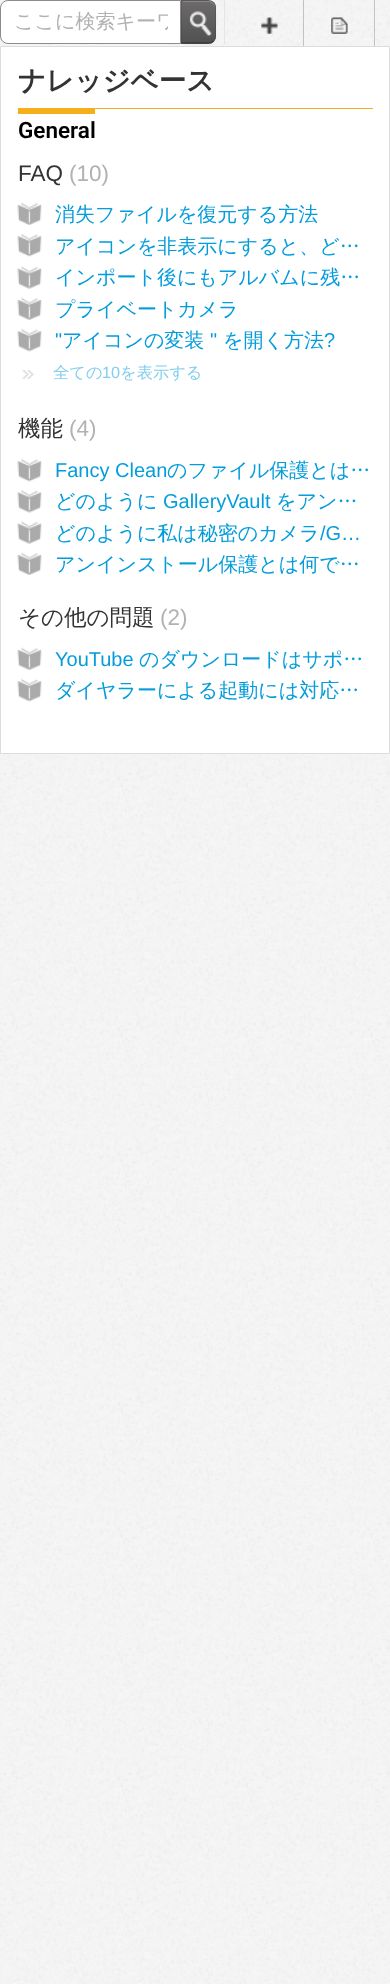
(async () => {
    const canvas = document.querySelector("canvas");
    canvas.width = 390;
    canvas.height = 1984;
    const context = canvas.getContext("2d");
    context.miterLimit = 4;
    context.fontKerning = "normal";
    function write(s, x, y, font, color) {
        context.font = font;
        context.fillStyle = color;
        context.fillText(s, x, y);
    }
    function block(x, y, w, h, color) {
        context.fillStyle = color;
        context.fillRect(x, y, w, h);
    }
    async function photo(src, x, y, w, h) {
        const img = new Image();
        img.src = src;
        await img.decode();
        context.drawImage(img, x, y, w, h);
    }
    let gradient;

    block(0, 0, 390, 1984, "rgb(247, 247, 247)");
    await photo("media/1.png", 0, 0, 390, 1984);
    block(224, 0, 1, 44, "rgb(229, 229, 229)");
    context.fillStyle = "rgb(255, 255, 255)";
    context.beginPath();
    context.roundRect(0.5, 0.5, 180, 43, [7.5, 0, 0, 7.5]);
    context.fill();
    context.strokeStyle = "rgb(140, 140, 140)";
    context.stroke();
    context.save();
    context.beginPath();
    context.rect(14, 10, 154, 26);
    context.clip();
    write("ここに検索キーワ", 14, 28, "500 20px WenQuanYi Zen Hei", "rgb(178, 178, 178)");
    context.restore();
    context.beginPath();
    context.rect(0.5, 46.5, 389, 707);
    context.fill();
    context.strokeStyle = "rgb(220, 220, 220)";
    context.stroke();
    context.fillStyle = "rgba(0, 0, 0, 0.05)";
    context.filter = "blur(1px)";
    context.beginPath();
    context.roundRect(181, 1, 35, 44, 8);
    context.fill();
    context.filter = "none";
    context.fillStyle = "rgb(98, 96, 96)";
    context.beginPath();
    context.roundRect(181, 0, 35, 44, [0, 8, 8, 0]);
    context.fill();
    context.save();
    context.beginPath();
    context.roundRect(181, 0, 35, 44, [0, 8, 8, 0]);
    context.clip();
    gradient = context.createLinearGradient(199, 1.2, 199, 43);
    gradient.addColorStop(0, "rgb(108, 106, 106)");
    gradient.addColorStop(1, "rgb(82, 81, 81)");
    context.fillStyle = gradient;
    context.fillRect(181, 1, 35, 42);
    context.restore();
    context.fillStyle = "rgb(137, 136, 136)";
    context.beginPath();
    context.moveTo(183, 1);
    context.lineTo(183, 2);
    context.lineTo(209, 2);
    context.bezierCurveTo(212, 2, 215, 5, 215, 9);
    context.bezierCurveTo(215, 5, 214, 1, 209, 1);
    context.closePath();
    context.fill();
    context.fillStyle = "rgba(0, 0, 0, 0.1)";
    context.beginPath();
    context.moveTo(181, 0);
    context.lineTo(182, 1);
    context.lineTo(209, 1);
    context.bezierCurveTo(210.5, 1, 212, 2, 213, 3);
    context.lineTo(214, 2);
    context.bezierCurveTo(213, 1, 211, 0, 209, 0);
    context.closePath();
    context.fill();
    context.beginPath();
    context.moveTo(214, 2);
    context.bezierCurveTo(215.5, 3.5, 216, 5.5, 216, 8);
    context.lineTo(216, 36);
    context.bezierCurveTo(216, 38, 215, 40, 214, 41.5);
    context.lineTo(213, 40.5);
    context.bezierCurveTo(214, 39.5, 215, 38, 215, 36);
    context.lineTo(215, 8);
    context.bezierCurveTo(215, 6, 214.5, 4.5, 213, 3);
    context.closePath();
    context.fill();
    context.fillStyle = "rgba(0, 0, 0, 0.25)";
    context.beginPath();
    context.moveTo(214, 41.5);
    context.bezierCurveTo(213, 42.5, 212, 43.5, 210.5, 44);
    context.lineTo(181, 44);
    context.lineTo(183, 42);
    context.lineTo(209, 42);
    context.bezierCurveTo(210.5, 42, 212, 41.5, 213, 40.5);
    context.closePath();
    context.fill();
    context.fillStyle = "rgba(0, 0, 0, 0.1)";
    context.beginPath();
    context.moveTo(182, 1);
    context.lineTo(181, 0);
    context.lineTo(181, 44);
    context.lineTo(183, 42);
    context.lineTo(182, 42);
    context.closePath();
    context.fill();
    await photo("media/2.png", 189, 11, 23, 26);
    block(304, 15, 1, 18, "rgba(255, 255, 255, 0.2)");
    block(303, 0, 1, 46, "rgba(0, 0, 0, 0.2)");
    await photo("media/3.png", 261, 17, 17, 17);
    block(375, 0, 1, 46, "rgba(255, 255, 255, 0.2)");
    block(374, 0, 1, 46, "rgba(0, 0, 0, 0.2)");
    await photo("media/4.png", 330, 17, 18, 17);
    write("ナレッジベース", 18, 90, "bold 27.5px WenQuanYi Zen Hei", "rgb(51, 51, 51)");
    block(18, 108, 355, 1, "rgb(244, 175, 26)");
    block(18, 109, 77, 5, "rgb(244, 175, 26)");
    write("General", 18, 138, "600 22.5px Roboto", "rgb(0, 0, 0)");
    write("FAQ", 18, 181, "22.5px Liberation Sans", "rgb(51, 51, 51)");
    write("(10)", 69, 181, "22.5px Liberation Sans", "rgb(178, 178, 178)");
    await photo("media/5.png", 17, 202, 25, 23);
    write("消失ファイルを復元する方法", 55, 221, "500 20px WenQuanYi Zen Hei", "rgb(4, 156, 219)");
    await photo("media/6.png", 17, 233, 25, 24);
    write("アイコンを非表示にすると、ど…", 55, 253, "500 20px WenQuanYi Zen Hei", "rgb(4, 156, 219)");
    await photo("media/7.png", 17, 266, 25, 23);
    write("インポート後にもアルバムに残…", 55, 284, "500 20px WenQuanYi Zen Hei", "rgb(4, 156, 219)");
    await photo("media/5.png", 17, 297, 25, 23);
    write("プライベートカメラ", 55, 316, "500 20px WenQuanYi Zen Hei", "rgb(4, 156, 219)");
    await photo("media/6.png", 17, 328, 25, 24);
    write("\"", 55, 347, "20px Liberation Sans", "rgb(4, 156, 219)");
    write("アイコンの変装", 62, 347, "500 20px WenQuanYi Zen Hei", "rgb(4, 156, 219)");
    write("\"", 210, 347, "20px Liberation Sans", "rgb(4, 156, 219)");
    write("を開く方法", 223, 347, "500 20px WenQuanYi Zen Hei", "rgb(4, 156, 219)");
    write("?", 324, 347, "20px Liberation Sans", "rgb(4, 156, 219)");
    await photo("media/8.png", 22, 370, 12, 9);
    write("全ての", 53, 378, "500 16.25px WenQuanYi Zen Hei", "rgb(130, 206, 237)");
    write("10", 102, 378, "16.25px Liberation Sans", "rgb(130, 206, 237)");
    write("を表示する", 120, 378, "500 16.25px WenQuanYi Zen Hei", "rgb(130, 206, 237)");
    write("機能", 18, 436, "500 22.5px WenQuanYi Zen Hei", "rgb(51, 51, 51)");
    write("(4)", 69, 436, "22.5px Liberation Sans", "rgb(178, 178, 178)");
    await photo("media/6.png", 17, 458, 25, 24);
    write("Fancy Clean", 55, 477, "20px Liberation Sans", "rgb(4, 156, 219)");
    write("のファイル保護とは…", 167, 477, "500 20px WenQuanYi Zen Hei", "rgb(4, 156, 219)");
    await photo("media/9.png", 17, 490, 25, 23);
    write("どのように", 55, 508, "500 20px WenQuanYi Zen Hei", "rgb(4, 156, 219)");
    write("GalleryVault", 163, 508, "20px Liberation Sans", "rgb(4, 156, 219)");
    write("をアン…", 276, 508, "500 20px WenQuanYi Zen Hei", "rgb(4, 156, 219)");
    await photo("media/7.png", 17, 521, 25, 23);
    write("どのように私は秘密のカメラ", 55, 540, "500 20px WenQuanYi Zen Hei", "rgb(4, 156, 219)");
    write("/G…", 320, 540, "20px Liberation Sans", "rgb(4, 156, 219)");
    await photo("media/5.png", 17, 552, 25, 23);
    write("アンインストール保護とは何で…", 55, 571, "500 20px WenQuanYi Zen Hei", "rgb(4, 156, 219)");
    write("その他の問題", 18, 625, "500 22.5px WenQuanYi Zen Hei", "rgb(51, 51, 51)");
    write("(2)", 160, 625, "22.5px Liberation Sans", "rgb(178, 178, 178)");
    await photo("media/5.png", 17, 647, 25, 23);
    write("YouTube", 55, 666, "20px Liberation Sans", "rgb(4, 156, 219)");
    write("のダウンロードはサポ…", 139, 666, "500 20px WenQuanYi Zen Hei", "rgb(4, 156, 219)");
    await photo("media/6.png", 17, 678, 25, 24);
    write("ダイヤラーによる起動には対応…", 55, 697, "500 20px WenQuanYi Zen Hei", "rgb(4, 156, 219)");
})();
